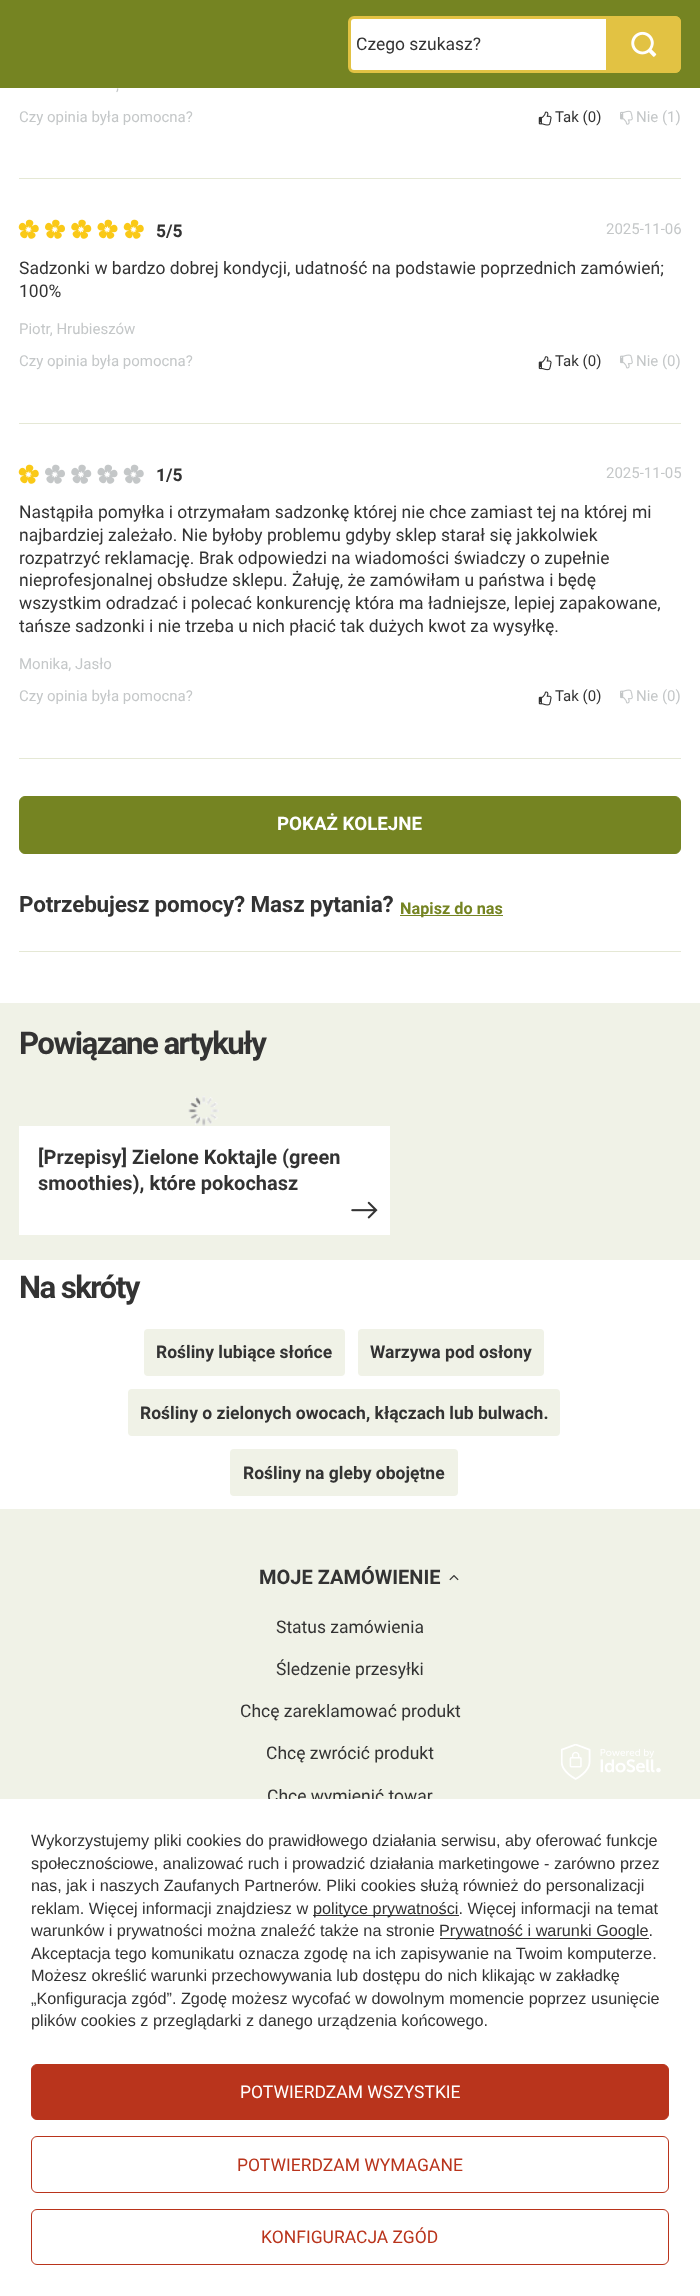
(async () => {
    const canvas = document.querySelector("canvas");
    canvas.width = 700;
    canvas.height = 2296;
    const context = canvas.getContext("2d");
    context.miterLimit = 4;
    context.fontKerning = "normal";
    function write(s, x, y, font, color) {
        context.font = font;
        context.fillStyle = color;
        context.fillText(s, x, y);
    }
    function block(x, y, w, h, color) {
        context.fillStyle = color;
        context.fillRect(x, y, w, h);
    }
    function card(x, y, w, h, r, color) {
        context.fillStyle = color;
        context.beginPath();
        context.roundRect(x, y, w, h, r);
        context.fill();
    }
    async function photo(src, x, y, w, h) {
        const img = new Image();
        img.src = src;
        await img.decode();
        context.drawImage(img, x, y, w, h);
    }

    block(0, 0, 700, 2296, "rgb(255, 255, 255)");
    block(0, 0, 700, 88, "rgb(117, 132, 34)");
    context.fillStyle = "rgb(255, 255, 255)";
    context.beginPath();
    context.roundRect(349.5, 17.5, 330, 54, 4.5);
    context.fill();
    context.strokeStyle = "rgb(226, 194, 67)";
    context.lineWidth = 3;
    context.stroke();
    write("Czego szukasz?", 356, 50, "17.5px Roboto", "rgb(51, 51, 51)");
    context.fillStyle = "rgb(226, 194, 67)";
    context.beginPath();
    context.roundRect(606, 16, 75, 57, [0, 6, 6, 0]);
    context.fill();
    await photo("media/1.png", 631, 31, 26, 26);
    block(19, 178, 662, 1, "rgb(229, 232, 213)");
    write(",", 116, 90, "15px Roboto", "rgb(196, 199, 200)");
    write("Czy opinia była pomocna?", 19, 122, "15px Roboto", "rgb(196, 199, 200)");
    await photo("media/2.png", 538, 111, 14, 15);
    write("Tak (0)", 555, 122, "15px Roboto", "rgb(51, 51, 51)");
    await photo("media/3.png", 620, 110, 13, 15);
    write("Nie (1)", 636, 122, "15px Roboto", "rgb(196, 199, 200)");
    block(19, 423, 662, 1, "rgb(229, 232, 213)");
    await photo("media/4.png", 18, 219, 21, 20);
    await photo("media/5.png", 45, 219, 20, 20);
    await photo("media/6.png", 71, 219, 21, 20);
    await photo("media/7.png", 97, 219, 21, 20);
    await photo("media/4.png", 123, 219, 21, 20);
    write("5/5", 156, 237, "bold 17.5px Roboto", "rgb(51, 51, 51)");
    write("2025-11-06", 606, 234, "15px Roboto", "rgb(196, 199, 200)");
    write("Sadzonki w bardzo dobrej kondycji, udatność na podstawie poprzednich zamówień;", 19, 274, "17.5px Roboto", "rgb(51, 51, 51)");
    write("100%", 19, 297, "17.5px Roboto", "rgb(51, 51, 51)");
    write("Piotr, Hrubieszów", 19, 334, "15px Roboto", "rgb(196, 199, 200)");
    write("Czy opinia była pomocna?", 19, 366, "15px Roboto", "rgb(196, 199, 200)");
    await photo("media/8.png", 538, 356, 14, 15);
    write("Tak (0)", 555, 366, "15px Roboto", "rgb(51, 51, 51)");
    await photo("media/9.png", 620, 354, 13, 15);
    write("Nie (0)", 636, 366, "15px Roboto", "rgb(196, 199, 200)");
    block(19, 758, 662, 1, "rgb(229, 232, 213)");
    await photo("media/4.png", 18, 464, 21, 20);
    await photo("media/10.png", 45, 464, 20, 20);
    await photo("media/11.png", 71, 464, 21, 20);
    await photo("media/12.png", 97, 464, 21, 20);
    await photo("media/13.png", 123, 464, 21, 20);
    write("1/5", 156, 481, "bold 17.5px Roboto", "rgb(51, 51, 51)");
    write("2025-11-05", 606, 478, "15px Roboto", "rgb(196, 199, 200)");
    write("Nastąpiła pomyłka i otrzymałam sadzonkę której nie chce zamiast tej na której mi", 19, 518, "17.5px Roboto", "rgb(51, 51, 51)");
    write("najbardziej zależało. Nie byłoby problemu gdyby sklep starał się jakkolwiek", 19, 541, "17.5px Roboto", "rgb(51, 51, 51)");
    write("rozpatrzyć reklamację. Brak odpowiedzi na wiadomości świadczy o zupełnie", 19, 564, "17.5px Roboto", "rgb(51, 51, 51)");
    write("nieprofesjonalnej obsłudze sklepu. Żałuję, że zamówiłam u państwa i będę", 19, 586, "17.5px Roboto", "rgb(51, 51, 51)");
    write("wszystkim odradzać i polecać konkurencję która ma ładniejsze, lepiej zapakowane,", 19, 609, "17.5px Roboto", "rgb(51, 51, 51)");
    write("tańsze sadzonki i nie trzeba u nich płacić tak dużych kwot za wysyłkę.", 19, 632, "17.5px Roboto", "rgb(51, 51, 51)");
    write("Monika, Jasło", 19, 669, "15px Roboto", "rgb(196, 199, 200)");
    write("Czy opinia była pomocna?", 19, 701, "15px Roboto", "rgb(196, 199, 200)");
    await photo("media/14.png", 538, 691, 14, 15);
    write("Tak (0)", 555, 701, "15px Roboto", "rgb(51, 51, 51)");
    await photo("media/9.png", 620, 689, 13, 15);
    write("Nie (0)", 636, 701, "15px Roboto", "rgb(196, 199, 200)");
    context.fillStyle = "rgb(117, 132, 34)";
    context.beginPath();
    context.roundRect(19.5, 796.5, 661, 57, 5.5);
    context.fill();
    context.strokeStyle = "rgb(117, 132, 34)";
    context.lineWidth = 1;
    context.stroke();
    write("POKAŻ KOLEJNE", 277, 830, "bold 18.75px Roboto", "rgb(255, 255, 255)");
    block(19, 951, 662, 1, "rgb(229, 232, 213)");
    context.letterSpacing = "-0.2px";
    write("Potrzebujesz pomocy? Masz pytania?", 19, 912, "bold 22.5px Roboto", "rgb(51, 51, 51)");
    block(400, 915, 103, 1, "rgb(117, 132, 34)");
    context.letterSpacing = "0px";
    write("Napisz do nas", 400, 914, "bold 16.25px Roboto", "rgb(117, 132, 34)");
    block(0, 1003, 700, 257, "rgb(240, 242, 231)");
    context.letterSpacing = "-1.6px";
    write("Powiązane artykuły", 19, 1054, "bold 31.25px Roboto", "rgb(51, 51, 51)");
    await photo("media/15.png", 188, 1096, 31, 30);
    block(19, 1126, 371, 109, "rgb(255, 255, 255)");
    context.letterSpacing = "0px";
    write("[Przepisy] Zielone Koktajle (green", 38, 1164, "bold 20px Roboto", "rgb(51, 51, 51)");
    write("smoothies), które pokochasz", 38, 1190, "bold 20px Roboto", "rgb(51, 51, 51)");
    await photo("media/16.png", 351, 1201, 27, 18);
    context.letterSpacing = "-1.6px";
    write("Na skróty", 19, 1298, "bold 31.25px Roboto", "rgb(51, 51, 51)");
    card(144, 1329, 201, 47, 4, "rgb(240, 242, 231)");
    context.letterSpacing = "0px";
    write("Rośliny lubiące słońce", 156, 1358, "bold 17.5px Roboto", "rgb(51, 51, 51)");
    card(358, 1329, 186, 47, 4, "rgb(240, 242, 231)");
    write("Warzywa pod osłony", 370, 1358, "bold 17.5px Roboto", "rgb(51, 51, 51)");
    card(128, 1389, 432, 47, 4, "rgb(240, 242, 231)");
    write("Rośliny o zielonych owocach, kłączach lub bulwach.", 140, 1419, "bold 17.5px Roboto", "rgb(51, 51, 51)");
    card(230, 1449, 228, 47, 4, "rgb(240, 242, 231)");
    write("Rośliny na gleby obojętne", 243, 1479, "bold 17.5px Roboto", "rgb(51, 51, 51)");
    block(0, 1509, 700, 290, "rgb(240, 242, 231)");
    write("MOJE ZAMÓWIENIE", 259, 1584, "bold 20px Roboto", "rgb(51, 51, 51)");
    await photo("media/17.png", 449, 1575, 10, 6);
    write("Status zamówienia", 276, 1633, "17.5px Roboto", "rgb(51, 51, 51)");
    write("Śledzenie przesyłki", 276, 1675, "17.5px Roboto", "rgb(51, 51, 51)");
    write("Chcę zareklamować produkt", 240, 1717, "17.5px Roboto", "rgb(51, 51, 51)");
    write("Chcę zwrócić produkt", 266, 1759, "17.5px Roboto", "rgb(51, 51, 51)");
    write("Chcę wymienić towar", 267, 1802, "17.5px Roboto", "rgb(51, 51, 51)");
    block(268, 1799, 162, 7, "rgb(255, 255, 255)");
    await photo("media/18.png", 561, 1744, 100, 36);
    write("Wykorzystujemy pliki cookies do prawidłowego działania serwisu, aby oferować funkcje", 31, 1846, "16.25px Liberation Sans", "rgb(51, 51, 51)");
    write("społecznościowe, analizować ruch i prowadzić działania marketingowe - zarówno przez", 31, 1869, "16.25px Liberation Sans", "rgb(51, 51, 51)");
    write("nas, jak i naszych Zaufanych Partnerów. Pliki cookies służą również do personalizacji", 31, 1891, "16.25px Liberation Sans", "rgb(51, 51, 51)");
    write("reklam. Więcej informacji znajdziesz w", 31, 1914, "16.25px Liberation Sans", "rgb(51, 51, 51)");
    block(313, 1915, 146, 1, "rgb(51, 51, 51)");
    write("polityce prywatności. Więcej informacji na temat", 313, 1914, "16.25px Liberation Sans", "rgb(51, 51, 51)");
    write("warunków i prywatności można znaleźć także na stronie", 31, 1936, "16.25px Liberation Sans", "rgb(51, 51, 51)");
    block(440, 1938, 209, 1, "rgb(51, 51, 51)");
    write("Prywatność i warunki Google.", 439, 1936, "16.25px Liberation Sans", "rgb(51, 51, 51)");
    write("Akceptacja tego komunikatu oznacza zgodę na ich zapisywanie na Twoim komputerze.", 31, 1959, "16.25px Liberation Sans", "rgb(51, 51, 51)");
    write("Możesz określić warunki przechowywania lub dostępu do nich klikając w zakładkę", 31, 1981, "16.25px Liberation Sans", "rgb(51, 51, 51)");
    write("„Konfiguracja zgód”. Zgodę możesz wycofać w dowolnym momencie poprzez usunięcie", 31, 2004, "16.25px Liberation Sans", "rgb(51, 51, 51)");
    write("plików cookies z przeglądarki z danego urządzenia końcowego.", 31, 2026, "16.25px Liberation Sans", "rgb(51, 51, 51)");
    context.fillStyle = "rgb(185, 52, 28)";
    context.beginPath();
    context.roundRect(31.5, 2064.5, 637, 55, 5.5);
    context.fill();
    context.strokeStyle = "rgb(185, 52, 28)";
    context.stroke();
    write("POTWIERDZAM WSZYSTKIE", 240, 2098, "17.5px Roboto", "rgb(255, 255, 255)");
    context.beginPath();
    context.roundRect(31.5, 2136.5, 637, 56, 5.5);
    context.stroke();
    write("POTWIERDZAM WYMAGANE", 237, 2171, "17.5px Roboto", "rgb(185, 52, 28)");
    context.beginPath();
    context.roundRect(31.5, 2209.5, 637, 55, 5.5);
    context.stroke();
    write("KONFIGURACJA ZGÓD", 261, 2243, "17.5px Roboto", "rgb(185, 52, 28)");
})();
